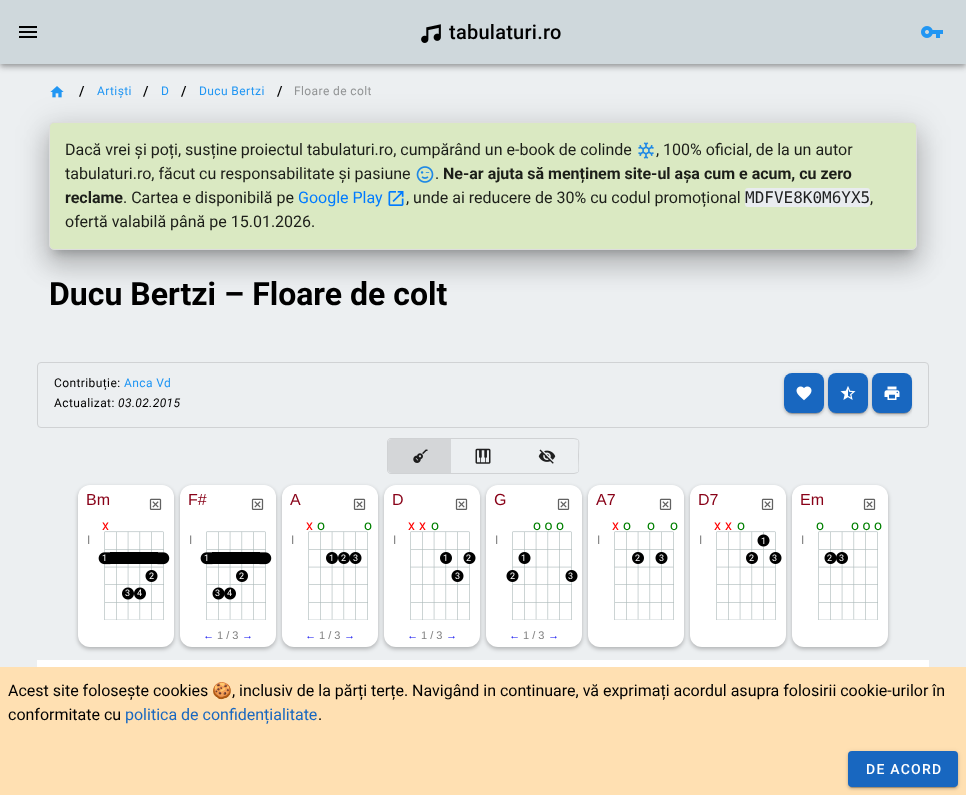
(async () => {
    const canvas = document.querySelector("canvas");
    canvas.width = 966;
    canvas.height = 795;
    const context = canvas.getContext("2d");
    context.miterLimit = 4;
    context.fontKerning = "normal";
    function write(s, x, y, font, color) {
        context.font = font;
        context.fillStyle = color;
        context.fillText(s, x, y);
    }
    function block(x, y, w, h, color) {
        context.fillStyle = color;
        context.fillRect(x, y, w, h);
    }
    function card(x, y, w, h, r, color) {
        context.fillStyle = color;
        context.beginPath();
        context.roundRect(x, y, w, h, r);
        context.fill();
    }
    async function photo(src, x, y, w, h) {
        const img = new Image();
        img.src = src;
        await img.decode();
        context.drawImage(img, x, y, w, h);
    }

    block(0, 0, 966, 795, "rgb(236, 239, 241)");
    context.fillStyle = "rgba(0, 0, 0, 0.12)";
    context.filter = "blur(5px)";
    context.beginPath();
    context.rect(0, 1, 966, 64);
    context.fill();
    context.filter = "none";
    context.fillStyle = "rgba(0, 0, 0, 0.14)";
    context.filter = "blur(2.5px)";
    context.beginPath();
    context.rect(0, 4, 966, 64);
    context.fill();
    context.filter = "none";
    context.fillStyle = "rgba(0, 0, 0, 0.2)";
    context.filter = "blur(2px)";
    context.beginPath();
    context.rect(1, 3, 964, 62);
    context.fill();
    context.filter = "none";
    block(0, 0, 966, 64, "rgb(207, 216, 220)");
    await photo("media/1.png", 19, 26, 18, 12);
    await photo("media/2.png", 421, 24, 20, 19);
    context.letterSpacing = "0.25px";
    write("tabulaturi.ro", 449, 39, "500 20px Roboto", "rgb(0, 0, 0)");
    await photo("media/3.png", 921, 26, 22, 12);
    await photo("media/4.png", 50, 86, 14, 12);
    context.letterSpacing = "0px";
    write("/", 79, 96, "500 14px Roboto", "rgb(0, 0, 0)");
    context.letterSpacing = "0.4px";
    write("Artiști", 97, 95, "12px Roboto", "rgb(33, 150, 243)");
    context.letterSpacing = "0px";
    write("/", 143, 96, "500 14px Roboto", "rgb(0, 0, 0)");
    context.letterSpacing = "0.4px";
    write("D", 161, 95, "12px Roboto", "rgb(33, 150, 243)");
    context.letterSpacing = "0px";
    write("/", 181, 96, "500 14px Roboto", "rgb(0, 0, 0)");
    context.letterSpacing = "0.4px";
    write("Ducu Bertzi", 199, 95, "12px Roboto", "rgb(33, 150, 243)");
    context.letterSpacing = "0px";
    write("/", 277, 96, "500 14px Roboto", "rgb(0, 0, 0)");
    context.letterSpacing = "0.4px";
    write("Floare de colt", 294, 95, "12px Roboto", "rgb(146, 148, 149)");
    context.fillStyle = "rgba(0, 0, 0, 0.12)";
    context.filter = "blur(15px)";
    context.beginPath();
    context.roundRect(44, 123, 878, 138, 10);
    context.fill();
    context.filter = "none";
    context.fillStyle = "rgba(0, 0, 0, 0.14)";
    context.filter = "blur(12px)";
    context.beginPath();
    context.roundRect(47, 136, 872, 132, 7);
    context.fill();
    context.filter = "none";
    context.fillStyle = "rgba(0, 0, 0, 0.2)";
    context.filter = "blur(5px)";
    context.beginPath();
    context.rect(54, 135, 858, 118);
    context.fill();
    context.filter = "none";
    context.fillStyle = "rgb(218, 233, 194)";
    context.beginPath();
    context.roundRect(49.5, 122.5, 867, 127, 4.5);
    context.fill();
    context.strokeStyle = "rgb(221, 221, 221)";
    context.stroke();
    context.letterSpacing = "0px";
    write("Dacă vrei și poți, susține proiectul tabulaturi.ro, cumpărând un e-book de colinde", 65, 155, "16px Roboto", "rgb(28, 30, 25)");
    await photo("media/5.png", 638, 142, 16, 17);
    write(", 100% oficial, de la un autor", 656, 155, "16px Roboto", "rgb(28, 30, 25)");
    write("tabulaturi.ro, făcut cu responsabilitate și pasiune", 65, 179, "16px Roboto", "rgb(28, 30, 25)");
    await photo("media/6.png", 416, 166, 18, 17);
    write(".", 435, 179, "16px Roboto", "rgb(28, 30, 25)");
    write("Ne-ar ajuta să menținem site-ul așa cum e acum, cu zero", 443, 179, "bold 16px Roboto", "rgb(28, 30, 25)");
    write("reclame", 65, 203, "bold 16px Roboto", "rgb(28, 30, 25)");
    write(". Cartea e disponibilă pe", 123, 203, "16px Roboto", "rgb(28, 30, 25)");
    write("Google Play", 298, 203, "16px Roboto", "rgb(0, 123, 255)");
    await photo("media/7.png", 388, 191, 16, 15);
    write(", unde ai reducere de 30% cu codul promoțional", 406, 203, "16px Roboto", "rgb(28, 30, 25)");
    card(745, 188, 125, 19, 3, "rgb(233, 236, 239)");
    write("MDFVE8K0M6YX5", 745, 203, "16px DejaVu Sans Mono", "rgb(30, 31, 31)");
    write(",", 870, 203, "16px Roboto", "rgb(28, 30, 25)");
    write("ofertă valabilă până pe 15.01.2026.", 65, 227, "16px Roboto", "rgb(28, 30, 25)");
    write("Ducu Bertzi – Floare de colt", 49, 305, "bold 32px Roboto", "rgb(0, 0, 0)");
    context.beginPath();
    context.roundRect(37.5, 362.5, 891, 65, 3.5);
    context.strokeStyle = "rgb(208, 210, 212)";
    context.stroke();
    context.letterSpacing = "0.4px";
    write("Contribuție:", 54, 387, "12px Roboto", "rgb(0, 0, 0)");
    write("Anca Vd", 124, 387, "12px Roboto", "rgb(33, 150, 243)");
    write("Actualizat:", 54, 407, "12px Roboto", "rgb(0, 0, 0)");
    write("03.02.2015", 118, 407, "italic 12px Roboto", "rgb(0, 0, 0)");
    context.save();
    context.beginPath();
    context.moveTo(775, 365);
    context.lineTo(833, 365);
    context.lineTo(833, 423);
    context.lineTo(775, 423);
    context.closePath();
    context.moveTo(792, 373);
    context.lineTo(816, 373);
    context.bezierCurveTo(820.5, 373, 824, 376.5, 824, 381);
    context.lineTo(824, 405);
    context.bezierCurveTo(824, 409.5, 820.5, 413, 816, 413);
    context.lineTo(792, 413);
    context.bezierCurveTo(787.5, 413, 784, 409.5, 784, 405);
    context.lineTo(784, 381);
    context.bezierCurveTo(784, 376.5, 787.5, 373, 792, 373);
    context.closePath();
    context.clip("evenodd");
    context.fillStyle = "rgba(0, 0, 0, 0.12)";
    context.filter = "blur(2.5px)";
    context.beginPath();
    context.roundRect(784, 374, 40, 40, 8);
    context.fill();
    context.filter = "none";
    context.restore();
    context.fillStyle = "rgba(0, 0, 0, 0.14)";
    context.filter = "blur(1px)";
    context.beginPath();
    context.roundRect(784, 375, 40, 40, 8);
    context.fill();
    context.filter = "none";
    context.fillStyle = "rgba(0, 0, 0, 0.2)";
    context.filter = "blur(0.5px)";
    context.beginPath();
    context.roundRect(786, 378, 36, 36, 6);
    context.fill();
    context.filter = "none";
    card(784, 373, 40, 40, 8, "rgb(24, 103, 192)");
    await photo("media/8.png", 796, 386, 16, 15);
    context.save();
    context.beginPath();
    context.moveTo(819, 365);
    context.lineTo(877, 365);
    context.lineTo(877, 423);
    context.lineTo(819, 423);
    context.closePath();
    context.moveTo(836, 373);
    context.lineTo(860, 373);
    context.bezierCurveTo(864.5, 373, 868, 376.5, 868, 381);
    context.lineTo(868, 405);
    context.bezierCurveTo(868, 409.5, 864.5, 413, 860, 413);
    context.lineTo(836, 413);
    context.bezierCurveTo(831.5, 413, 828, 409.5, 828, 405);
    context.lineTo(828, 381);
    context.bezierCurveTo(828, 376.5, 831.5, 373, 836, 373);
    context.closePath();
    context.clip("evenodd");
    context.fillStyle = "rgba(0, 0, 0, 0.12)";
    context.filter = "blur(2.5px)";
    context.beginPath();
    context.roundRect(828, 374, 40, 40, 8);
    context.fill();
    context.filter = "none";
    context.restore();
    context.fillStyle = "rgba(0, 0, 0, 0.14)";
    context.filter = "blur(1px)";
    context.beginPath();
    context.roundRect(828, 375, 40, 40, 8);
    context.fill();
    context.filter = "none";
    context.fillStyle = "rgba(0, 0, 0, 0.2)";
    context.filter = "blur(0.5px)";
    context.beginPath();
    context.roundRect(830, 378, 36, 36, 6);
    context.fill();
    context.filter = "none";
    card(828, 373, 40, 40, 8, "rgb(24, 103, 192)");
    await photo("media/9.png", 840, 386, 16, 14);
    context.save();
    context.beginPath();
    context.rect(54, 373, 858, 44);
    context.clip();
    context.fillStyle = "rgba(0, 0, 0, 0.12)";
    context.filter = "blur(2.5px)";
    context.beginPath();
    context.roundRect(872, 374, 40, 40, 8);
    context.fill();
    context.filter = "none";
    context.restore();
    context.fillStyle = "rgba(0, 0, 0, 0.14)";
    context.filter = "blur(1px)";
    context.beginPath();
    context.roundRect(872, 375, 40, 40, 8);
    context.fill();
    context.filter = "none";
    context.fillStyle = "rgba(0, 0, 0, 0.2)";
    context.filter = "blur(0.5px)";
    context.beginPath();
    context.roundRect(874, 378, 36, 36, 6);
    context.fill();
    context.filter = "none";
    card(872, 373, 40, 40, 8, "rgb(24, 103, 192)");
    await photo("media/10.png", 884, 386, 16, 14);
    context.fillStyle = "rgb(208, 210, 212)";
    context.beginPath();
    context.moveTo(391, 438);
    context.lineTo(451, 438);
    context.lineTo(451, 474);
    context.lineTo(391, 474);
    context.bezierCurveTo(389, 474, 387, 472, 387, 470);
    context.lineTo(387, 442);
    context.bezierCurveTo(387, 440, 389, 438, 391, 438);
    context.closePath();
    context.moveTo(391, 439);
    context.lineTo(451, 439);
    context.lineTo(451, 473);
    context.lineTo(391, 473);
    context.bezierCurveTo(389, 473, 388, 472, 388, 470);
    context.lineTo(388, 442);
    context.bezierCurveTo(388, 440, 389, 439, 391, 439);
    context.closePath();
    context.fill("evenodd");
    context.fillStyle = "rgb(212, 214, 216)";
    context.beginPath();
    context.roundRect(388, 439, 63, 34, [4, 0, 0, 4]);
    context.fill();
    await photo("media/11.png", 413, 449, 15, 14);
    block(451, 438, 64, 1, "rgb(208, 210, 212)");
    block(451, 473, 64, 1, "rgb(208, 210, 212)");
    await photo("media/12.png", 475, 448, 16, 16);
    context.beginPath();
    context.moveTo(515, 438);
    context.lineTo(515, 439);
    context.lineTo(574, 439);
    context.lineTo(578, 440);
    context.bezierCurveTo(579, 442, 578, 453, 578, 456);
    context.bezierCurveTo(578, 459, 579, 470, 578, 472);
    context.lineTo(574, 473);
    context.lineTo(515, 473);
    context.lineTo(515, 474);
    context.lineTo(574, 474);
    context.bezierCurveTo(580, 473, 579, 471, 579, 465);
    context.lineTo(579, 456);
    context.bezierCurveTo(579, 438, 583, 438, 565, 438);
    context.closePath();
    context.fill();
    await photo("media/13.png", 538, 449, 18, 15);
    context.fillStyle = "rgba(0, 0, 0, 0.26)";
    context.filter = "blur(2px)";
    context.beginPath();
    context.roundRect(78, 487, 96, 162, 12);
    context.fill();
    context.filter = "none";
    card(78, 485, 96, 162, 12, "rgb(255, 255, 255)");
    context.letterSpacing = "0px";
    write("Bm", 86, 505, "16px Liberation Sans", "rgb(136, 0, 23)");
    await photo("media/14.png", 149, 498, 13, 12);
    write("x", 102, 530, "14px Roboto", "rgb(255, 0, 0)");
    write("I", 87, 544, "12px Roboto", "rgb(128, 128, 128)");
    await photo("media/15.png", 98, 531, 72, 89);
    write("1", 102, 561, "9px Roboto", "rgb(255, 255, 255)");
    write("2", 149, 579, "9px Roboto", "rgb(255, 255, 255)");
    write("3", 125, 596, "9px Roboto", "rgb(255, 255, 255)");
    write("4", 137, 596, "9px Roboto", "rgb(255, 255, 255)");
    context.fillStyle = "rgba(0, 0, 0, 0.26)";
    context.filter = "blur(2px)";
    context.beginPath();
    context.roundRect(180, 487, 96, 162, 12);
    context.fill();
    context.filter = "none";
    card(180, 485, 96, 162, 12, "rgb(255, 255, 255)");
    write("F#", 188, 505, "16px Liberation Sans", "rgb(136, 0, 23)");
    await photo("media/14.png", 251, 498, 13, 12);
    write("I", 189, 544, "12px Roboto", "rgb(128, 128, 128)");
    await photo("media/16.png", 200, 531, 72, 89);
    write("1", 204, 561, "9px Roboto", "rgb(255, 255, 255)");
    write("2", 239, 579, "9px Roboto", "rgb(255, 255, 255)");
    write("3", 215, 596, "9px Roboto", "rgb(255, 255, 255)");
    write("4", 227, 596, "9px Roboto", "rgb(255, 255, 255)");
    write("←", 203, 639, "11px Liberation Sans", "rgb(0, 0, 238)");
    write("1 / 3", 217, 639, "11px Liberation Sans", "rgb(128, 128, 128)");
    write("→", 242, 639, "11px Liberation Sans", "rgb(0, 0, 238)");
    context.fillStyle = "rgba(0, 0, 0, 0.26)";
    context.filter = "blur(2px)";
    context.beginPath();
    context.roundRect(282, 487, 96, 162, 12);
    context.fill();
    context.filter = "none";
    card(282, 485, 96, 162, 12, "rgb(255, 255, 255)");
    write("A", 290, 505, "16px Liberation Sans", "rgb(136, 0, 23)");
    await photo("media/14.png", 353, 498, 13, 12);
    write("x", 306, 530, "14px Roboto", "rgb(255, 0, 0)");
    write("o", 317, 530, "14px Roboto", "rgb(0, 128, 0)");
    write("o", 364, 530, "14px Roboto", "rgb(0, 128, 0)");
    write("I", 291, 544, "12px Roboto", "rgb(128, 128, 128)");
    await photo("media/17.png", 308, 531, 60, 89);
    write("1", 329, 561, "9px Roboto", "rgb(255, 255, 255)");
    write("2", 341, 561, "9px Roboto", "rgb(255, 255, 255)");
    write("3", 353, 561, "9px Roboto", "rgb(255, 255, 255)");
    write("←", 305, 639, "11px Liberation Sans", "rgb(0, 0, 238)");
    write("1 / 3", 319, 639, "11px Liberation Sans", "rgb(128, 128, 128)");
    write("→", 344, 639, "11px Liberation Sans", "rgb(0, 0, 238)");
    context.fillStyle = "rgba(0, 0, 0, 0.26)";
    context.filter = "blur(2px)";
    context.beginPath();
    context.roundRect(384, 487, 96, 162, 12);
    context.fill();
    context.filter = "none";
    card(384, 485, 96, 162, 12, "rgb(255, 255, 255)");
    write("D", 392, 505, "16px Liberation Sans", "rgb(136, 0, 23)");
    await photo("media/14.png", 455, 498, 13, 12);
    write("x", 408, 530, "14px Roboto", "rgb(255, 0, 0)");
    write("x", 419, 530, "14px Roboto", "rgb(255, 0, 0)");
    write("o", 431, 530, "14px Roboto", "rgb(0, 128, 0)");
    write("I", 393, 544, "12px Roboto", "rgb(128, 128, 128)");
    await photo("media/18.png", 410, 531, 66, 89);
    write("1", 443, 561, "9px Roboto", "rgb(255, 255, 255)");
    write("2", 466, 561, "9px Roboto", "rgb(255, 255, 255)");
    write("3", 455, 579, "9px Roboto", "rgb(255, 255, 255)");
    write("←", 407, 639, "11px Liberation Sans", "rgb(0, 0, 238)");
    write("1 / 3", 421, 639, "11px Liberation Sans", "rgb(128, 128, 128)");
    write("→", 446, 639, "11px Liberation Sans", "rgb(0, 0, 238)");
    context.fillStyle = "rgba(0, 0, 0, 0.26)";
    context.filter = "blur(2px)";
    context.beginPath();
    context.roundRect(486, 487, 96, 162, 12);
    context.fill();
    context.filter = "none";
    card(486, 485, 96, 162, 12, "rgb(255, 255, 255)");
    write("G", 494, 505, "16px Liberation Sans", "rgb(136, 0, 23)");
    await photo("media/14.png", 557, 498, 13, 12);
    write("o o o", 533, 530, "14px Roboto", "rgb(0, 128, 0)");
    write("I", 495, 544, "12px Roboto", "rgb(128, 128, 128)");
    await photo("media/19.png", 506, 531, 72, 89);
    write("1", 521, 561, "9px Roboto", "rgb(255, 255, 255)");
    write("2", 510, 579, "9px Roboto", "rgb(255, 255, 255)");
    write("3", 568, 579, "9px Roboto", "rgb(255, 255, 255)");
    write("←", 509, 639, "11px Liberation Sans", "rgb(0, 0, 238)");
    write("1 / 3", 523, 639, "11px Liberation Sans", "rgb(128, 128, 128)");
    write("→", 548, 639, "11px Liberation Sans", "rgb(0, 0, 238)");
    context.fillStyle = "rgba(0, 0, 0, 0.26)";
    context.filter = "blur(2px)";
    context.beginPath();
    context.roundRect(588, 487, 96, 162, 12);
    context.fill();
    context.filter = "none";
    card(588, 485, 96, 162, 12, "rgb(255, 255, 255)");
    write("A7", 596, 505, "16px Liberation Sans", "rgb(136, 0, 23)");
    await photo("media/14.png", 659, 498, 13, 12);
    write("x", 612, 530, "14px Roboto", "rgb(255, 0, 0)");
    write("o", 623, 530, "14px Roboto", "rgb(0, 128, 0)");
    write("o", 647, 530, "14px Roboto", "rgb(0, 128, 0)");
    write("o", 670, 530, "14px Roboto", "rgb(0, 128, 0)");
    write("I", 597, 544, "12px Roboto", "rgb(128, 128, 128)");
    await photo("media/20.png", 614, 531, 60, 89);
    write("2", 635, 561, "9px Roboto", "rgb(255, 255, 255)");
    write("3", 659, 561, "9px Roboto", "rgb(255, 255, 255)");
    context.fillStyle = "rgba(0, 0, 0, 0.26)";
    context.filter = "blur(2px)";
    context.beginPath();
    context.roundRect(690, 487, 96, 162, 12);
    context.fill();
    context.filter = "none";
    card(690, 485, 96, 162, 12, "rgb(255, 255, 255)");
    write("D7", 698, 505, "16px Liberation Sans", "rgb(136, 0, 23)");
    await photo("media/14.png", 761, 498, 13, 12);
    write("x", 714, 530, "14px Roboto", "rgb(255, 0, 0)");
    write("x", 725, 530, "14px Roboto", "rgb(255, 0, 0)");
    write("o", 737, 530, "14px Roboto", "rgb(0, 128, 0)");
    write("I", 699, 544, "12px Roboto", "rgb(128, 128, 128)");
    await photo("media/21.png", 716, 531, 66, 89);
    write("1", 761, 544, "9px Roboto", "rgb(255, 255, 255)");
    write("2", 749, 561, "9px Roboto", "rgb(255, 255, 255)");
    write("3", 772, 561, "9px Roboto", "rgb(255, 255, 255)");
    context.fillStyle = "rgba(0, 0, 0, 0.26)";
    context.filter = "blur(2px)";
    context.beginPath();
    context.roundRect(792, 487, 96, 162, 12);
    context.fill();
    context.filter = "none";
    card(792, 485, 96, 162, 12, "rgb(255, 255, 255)");
    write("Em", 800, 505, "16px Liberation Sans", "rgb(136, 0, 23)");
    await photo("media/14.png", 863, 498, 13, 12);
    write("o", 816, 530, "14px Roboto", "rgb(0, 128, 0)");
    write("o o o", 851, 530, "14px Roboto", "rgb(0, 128, 0)");
    write("I", 801, 544, "12px Roboto", "rgb(128, 128, 128)");
    await photo("media/22.png", 818, 531, 60, 89);
    write("2", 827, 561, "9px Roboto", "rgb(255, 255, 255)");
    write("3", 839, 561, "9px Roboto", "rgb(255, 255, 255)");
    block(37, 660, 892, 7, "rgb(255, 255, 255)");
    block(0, 667, 966, 128, "rgb(255, 224, 178)");
    write("Acest site folosește cookies", 8, 696, "16px Roboto", "rgb(0, 0, 0)");
    write("🍪", 212, 696, "16px Noto Color Emoji", "rgb(0, 0, 0)");
    write(", inclusiv de la părți terțe. Navigând in continuare, vă exprimați acordul asupra folosirii cookie-urilor în", 232, 696, "16px Roboto", "rgb(0, 0, 0)");
    write("conformitate cu", 8, 720, "16px Roboto", "rgb(0, 0, 0)");
    write("politica de confidențialitate", 125, 720, "16px Roboto", "rgb(24, 103, 192)");
    write(".", 318, 720, "16px Roboto", "rgb(0, 0, 0)");
    context.fillStyle = "rgba(0, 0, 0, 0.12)";
    context.filter = "blur(2.5px)";
    context.beginPath();
    context.roundRect(848, 752, 110, 36, 4);
    context.fill();
    context.filter = "none";
    context.fillStyle = "rgba(0, 0, 0, 0.14)";
    context.filter = "blur(1px)";
    context.beginPath();
    context.roundRect(848, 753, 110, 36, 4);
    context.fill();
    context.filter = "none";
    context.fillStyle = "rgba(0, 0, 0, 0.2)";
    context.filter = "blur(0.5px)";
    context.beginPath();
    context.roundRect(850, 756, 106, 32, 2);
    context.fill();
    context.filter = "none";
    card(848, 751, 110, 36, 4, "rgb(24, 103, 192)");
    context.letterSpacing = "1.25px";
    write("DE ACORD", 866, 774, "500 14px Roboto", "rgb(255, 255, 255)");
})();
